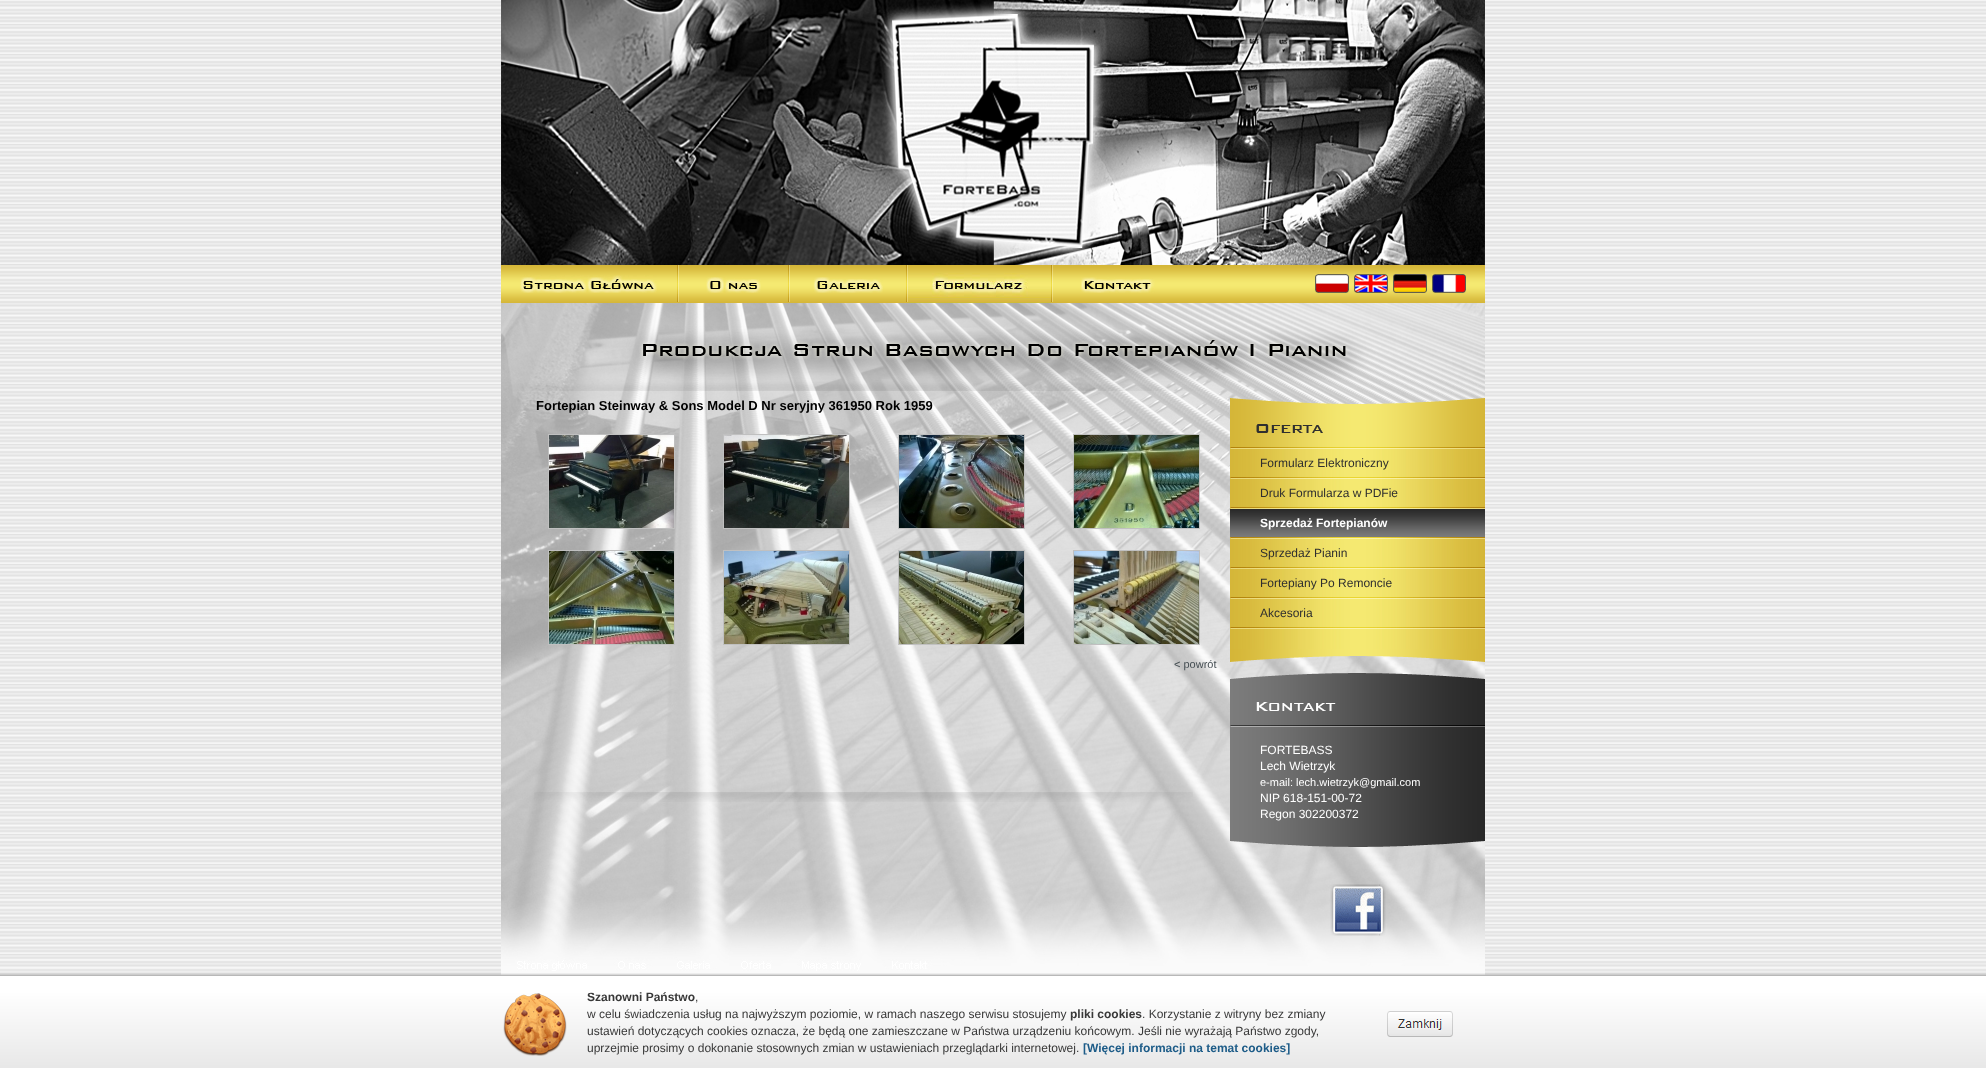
(async () => {
    const canvas = document.querySelector("canvas");
    canvas.width = 1986;
    canvas.height = 1068;
    const context = canvas.getContext("2d");
    context.miterLimit = 4;
    context.fontKerning = "normal";
    function write(s, x, y, font, color) {
        context.font = font;
        context.fillStyle = color;
        context.fillText(s, x, y);
    }
    function block(x, y, w, h, color) {
        context.fillStyle = color;
        context.fillRect(x, y, w, h);
    }
    async function photo(src, x, y, w, h) {
        const img = new Image();
        img.src = src;
        await img.decode();
        context.drawImage(img, x, y, w, h);
    }

    block(0, 0, 1986, 1068, "rgb(255, 255, 255)");
    await photo("media/1.png", 0, 0, 1986, 976);
    await photo("media/2.png", 501, 0, 984, 265);
    await photo("media/3.png", 501, 265, 984, 118);
    await photo("media/4.png", 520, 275, 137, 18);
    await photo("media/5.png", 677, 265, 2, 37);
    await photo("media/6.png", 706, 277, 55, 16);
    await photo("media/5.png", 788, 265, 2, 37);
    await photo("media/7.png", 813, 277, 70, 16);
    await photo("media/5.png", 906, 265, 2, 37);
    await photo("media/8.png", 908, 273, 143, 30);
    await photo("media/5.png", 1051, 265, 2, 37);
    await photo("media/9.png", 1081, 277, 74, 16);
    await photo("media/10.png", 1315, 274, 34, 19);
    await photo("media/11.png", 1354, 274, 34, 19);
    await photo("media/12.png", 1393, 274, 34, 19);
    await photo("media/13.png", 1432, 274, 34, 19);
    block(501, 971, 984, 4, "rgb(250, 250, 250)");
    await photo("media/14.png", 501, 383, 984, 588);
    await photo("media/15.png", 534, 792, 659, 10);
    write("Fortepian Steinway & Sons Model D Nr seryjny 361950 Rok 1959", 536, 410, "bold 13px Liberation Sans", "rgb(0, 0, 0)");
    context.strokeStyle = "rgb(192, 192, 192)";
    context.strokeRect(548.5, 434.5, 126, 94);
    await photo("media/16.png", 549, 435, 125, 93);
    context.strokeRect(723.5, 434.5, 126, 94);
    await photo("media/17.png", 724, 435, 125, 93);
    context.strokeRect(898.5, 434.5, 126, 94);
    await photo("media/18.png", 899, 435, 125, 93);
    context.strokeRect(1073.5, 434.5, 126, 94);
    await photo("media/19.png", 1074, 435, 125, 93);
    context.strokeRect(548.5, 550.5, 126, 94);
    await photo("media/20.png", 549, 551, 125, 93);
    context.strokeRect(723.5, 550.5, 126, 94);
    await photo("media/21.png", 724, 551, 125, 93);
    context.strokeRect(898.5, 550.5, 126, 94);
    await photo("media/22.png", 899, 551, 125, 93);
    context.strokeRect(1073.5, 550.5, 126, 94);
    await photo("media/23.png", 1074, 551, 125, 93);
    write("< powrót", 1174, 668, "11px Liberation Sans", "rgb(68, 77, 82)");
    await photo("media/24.png", 1230, 837, 255, 10);
    await photo("media/25.png", 1230, 398, 255, 51);
    await photo("media/26.png", 1230, 449, 255, 200);
    write("Formularz Elektroniczny", 1260, 467, "12px Liberation Sans", "rgb(47, 47, 47)");
    await photo("media/27.png", 1230, 477, 255, 2);
    write("Druk Formularza w PDFie", 1260, 497, "12px Liberation Sans", "rgb(47, 47, 47)");
    await photo("media/27.png", 1230, 507, 255, 2);
    await photo("media/28.png", 1230, 509, 255, 28);
    write("Sprzedaż Fortepianów", 1260, 527, "bold 12px Liberation Sans", "rgb(255, 255, 255)");
    await photo("media/27.png", 1230, 537, 255, 2);
    write("Sprzedaż Pianin", 1260, 557, "12px Liberation Sans", "rgb(47, 47, 47)");
    await photo("media/27.png", 1230, 567, 255, 2);
    write("Fortepiany Po Remoncie", 1260, 587, "12px Liberation Sans", "rgb(47, 47, 47)");
    await photo("media/27.png", 1230, 597, 255, 2);
    write("Akcesoria", 1260, 617, "12px Liberation Sans", "rgb(47, 47, 47)");
    await photo("media/27.png", 1230, 627, 255, 2);
    await photo("media/29.png", 1230, 649, 255, 78);
    await photo("media/30.png", 1230, 727, 255, 110);
    write("FORTEBASS", 1260, 754, "12px Liberation Sans", "rgb(255, 255, 255)");
    write("Lech Wietrzyk", 1260, 770, "12px Liberation Sans", "rgb(255, 255, 255)");
    write("e-mail: lech.wietrzyk@gmail.com", 1260, 786, "11px Liberation Sans", "rgb(255, 255, 255)");
    write("NIP 618-151-00-72", 1260, 802, "12px Liberation Sans", "rgb(255, 255, 255)");
    write("Regon 302200372", 1260, 818, "12px Liberation Sans", "rgb(255, 255, 255)");
    await photo("media/31.png", 1330, 884, 56, 52);
    await photo("media/32.png", 0, 973, 1986, 95);
    await photo("media/33.png", 503, 993, 64, 63);
    write("Szanowni Państwo", 587, 1001, "bold 12px Liberation Sans", "rgb(56, 56, 56)");
    write(",", 695, 1001, "12px Liberation Sans", "rgb(56, 56, 56)");
    write("w celu świadczenia usług na najwyższym poziomie, w ramach naszego serwisu stosujemy", 587, 1018, "12px Liberation Sans", "rgb(56, 56, 56)");
    write("pliki cookies", 1070, 1018, "bold 12px Liberation Sans", "rgb(56, 56, 56)");
    write(". Korzystanie z witryny bez zmiany", 1142, 1018, "12px Liberation Sans", "rgb(56, 56, 56)");
    write("ustawień dotyczących cookies oznacza, że będą one zamieszczane w Państwa urządzeniu końcowym. Jeśli nie wyrażają Państwo zgody,", 587, 1035, "12px Liberation Sans", "rgb(56, 56, 56)");
    write("uprzejmie prosimy o dokonanie stosownych zmian w ustawieniach przeglądarki internetowej.", 587, 1052, "12px Liberation Sans", "rgb(56, 56, 56)");
    write("[Więcej informacji na temat cookies]", 1083, 1052, "bold 12px Liberation Sans", "rgb(29, 92, 136)");
    await photo("media/34.png", 1387, 1011, 66, 26);
})();
